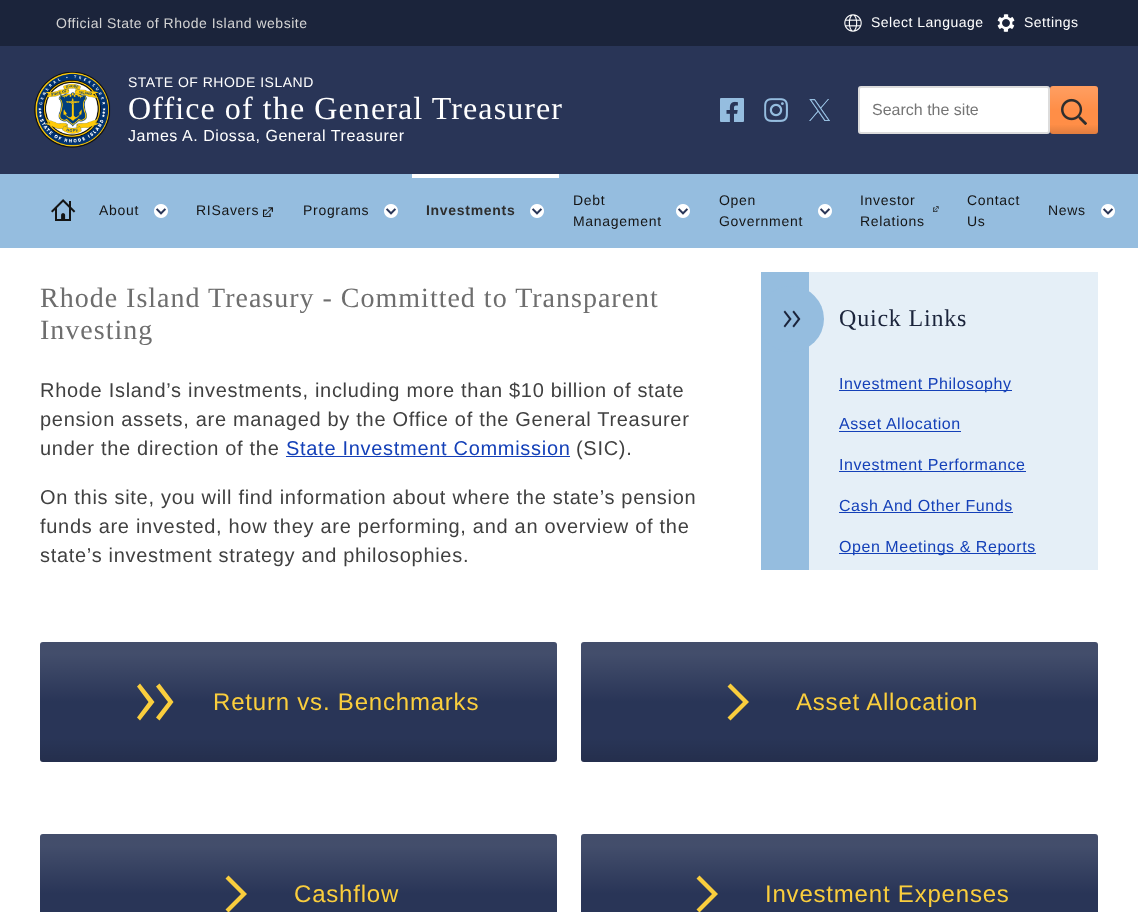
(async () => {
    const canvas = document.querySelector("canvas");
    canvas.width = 1138;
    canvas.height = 912;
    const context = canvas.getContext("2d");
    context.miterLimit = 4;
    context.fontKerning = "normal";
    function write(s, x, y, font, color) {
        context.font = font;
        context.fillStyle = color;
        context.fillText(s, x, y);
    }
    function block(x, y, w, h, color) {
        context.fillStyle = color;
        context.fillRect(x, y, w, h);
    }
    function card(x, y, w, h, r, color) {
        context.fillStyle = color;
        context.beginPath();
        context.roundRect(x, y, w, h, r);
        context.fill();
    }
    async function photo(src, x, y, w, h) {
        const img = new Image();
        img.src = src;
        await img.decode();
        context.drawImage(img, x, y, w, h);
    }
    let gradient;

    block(0, 0, 1138, 912, "rgb(255, 255, 255)");
    block(0, 46, 1138, 128, "rgb(41, 53, 87)");
    block(0, 0, 1138, 46, "rgb(27, 36, 59)");
    context.letterSpacing = "0.5px";
    write("Official State of Rhode Island website", 56, 28, "14px Liberation Sans", "rgb(212, 212, 212)");
    await photo("media/1.png", 844, 14, 18, 18);
    write("Select Language", 871, 27, "14px Liberation Sans", "rgb(255, 255, 255)");
    await photo("media/2.png", 997, 14, 18, 18);
    write("Settings", 1024, 27, "14px Liberation Sans", "rgb(255, 255, 255)");
    await photo("media/3.png", 34, 71, 77, 77);
    write("STATE OF RHODE ISLAND", 128, 87, "14px Liberation Sans", "rgb(255, 255, 255)");
    context.letterSpacing = "1.1px";
    write("Office of the General Treasurer", 128, 119, "32px Liberation Serif", "rgb(255, 255, 255)");
    context.letterSpacing = "0.55px";
    write("James A. Diossa, General Treasurer", 128, 141, "16px Liberation Sans", "rgb(255, 255, 255)");
    await photo("media/4.png", 720, 98, 24, 24);
    await photo("media/5.png", 764, 98, 24, 24);
    await photo("media/6.png", 809, 99, 21, 22);
    card(858, 86, 192, 48, 3, "rgb(255, 255, 255)");
    context.beginPath();
    context.roundRect(859, 87, 190, 46, 2);
    context.strokeStyle = "rgba(20, 20, 20, 0.15)";
    context.lineWidth = 2;
    context.stroke();
    context.letterSpacing = "0px";
    write("Search the site", 872, 115, "16px Liberation Sans", "rgb(117, 117, 117)");
    card(1050, 86, 48, 48, 3, "rgb(255, 142, 71)");
    gradient = context.createLinearGradient(1074, 86, 1074, 134);
    gradient.addColorStop(0.1, "rgba(255, 255, 255, 0.12)");
    gradient.addColorStop(0.5, "rgba(255, 255, 255, 0)");
    gradient.addColorStop(0.8, "rgba(0, 0, 0, 0)");
    gradient.addColorStop(1, "rgba(0, 0, 0, 0.12)");
    context.fillStyle = gradient;
    context.beginPath();
    context.roundRect(1050, 86, 48, 48, 3);
    context.fill();
    await photo("media/7.png", 1061, 98, 26, 27);
    block(0, 174, 1138, 74, "rgb(149, 189, 223)");
    await photo("media/8.png", 51, 199, 25, 22);
    context.letterSpacing = "0.7px";
    write("About", 99, 215, "14px Liberation Sans", "rgb(20, 20, 20)");
    await photo("media/9.png", 154, 204, 14, 14);
    write("RISavers", 196, 215, "14px Liberation Sans", "rgb(20, 20, 20)");
    await photo("media/10.png", 263, 207, 10, 10);
    write("Programs", 303, 215, "14px Liberation Sans", "rgb(20, 20, 20)");
    await photo("media/9.png", 384, 204, 14, 14);
    block(412, 174, 147, 4, "rgb(255, 255, 255)");
    write("Investments", 426, 215, "bold 14px Liberation Sans", "rgb(46, 46, 46)");
    await photo("media/9.png", 530, 204, 14, 14);
    write("Debt", 573, 205, "14px Liberation Sans", "rgb(20, 20, 20)");
    await photo("media/9.png", 676, 204, 14, 14);
    write("Management", 573, 226, "14px Liberation Sans", "rgb(20, 20, 20)");
    write("Open", 719, 205, "14px Liberation Sans", "rgb(20, 20, 20)");
    await photo("media/9.png", 818, 204, 14, 14);
    write("Government", 719, 226, "14px Liberation Sans", "rgb(20, 20, 20)");
    write("Investor", 860, 205, "14px Liberation Sans", "rgb(20, 20, 20)");
    await photo("media/11.png", 933, 206, 6, 6);
    write("Relations", 860, 226, "14px Liberation Sans", "rgb(20, 20, 20)");
    write("Contact", 967, 205, "14px Liberation Sans", "rgb(20, 20, 20)");
    write("Us", 967, 226, "14px Liberation Sans", "rgb(20, 20, 20)");
    write("News", 1048, 215, "14px Liberation Sans", "rgb(20, 20, 20)");
    await photo("media/9.png", 1101, 204, 14, 14);
    context.letterSpacing = "1px";
    write("Rhode Island Treasury - Committed to Transparent", 40, 307, "28px Liberation Serif", "rgb(110, 110, 110)");
    write("Investing", 40, 339, "28px Liberation Serif", "rgb(110, 110, 110)");
    context.letterSpacing = "0.7px";
    write("Rhode Island’s investments, including more than $10 billion of state", 40, 397, "20px Liberation Sans", "rgb(64, 64, 64)");
    write("pension assets, are managed by the Office of the General Treasurer", 40, 426, "20px Liberation Sans", "rgb(64, 64, 64)");
    write("under the direction of the", 40, 455, "20px Liberation Sans", "rgb(64, 64, 64)");
    write("State Investment Commission", 286, 455, "20px Liberation Sans", "rgb(20, 64, 184)");
    block(286, 456, 284, 1, "rgb(20, 64, 184)");
    write("(SIC).", 576, 455, "20px Liberation Sans", "rgb(64, 64, 64)");
    write("On this site, you will find information about where the state’s pension", 40, 504, "20px Liberation Sans", "rgb(64, 64, 64)");
    write("funds are invested, how they are performing, and an overview of the", 40, 533, "20px Liberation Sans", "rgb(64, 64, 64)");
    write("state’s investment strategy and philosophies.", 40, 562, "20px Liberation Sans", "rgb(64, 64, 64)");
    block(761, 272, 48, 298, "rgb(149, 189, 223)");
    block(809, 272, 289, 298, "rgb(229, 239, 247)");
    context.save();
    context.beginPath();
    context.rect(761, 272, 337, 298);
    context.clip();
    context.fillStyle = "rgb(149, 189, 223)";
    context.beginPath();
    context.arc(791, 319, 33, 0, Math.PI * 2);
    context.fill();
    context.restore();
    await photo("media/12.png", 783, 310, 18, 18);
    context.letterSpacing = "0.8px";
    write("Quick Links", 839, 326, "24px Liberation Serif", "rgb(27, 36, 59)");
    block(839, 390, 173, 1, "rgb(20, 64, 184)");
    context.letterSpacing = "0.55px";
    write("Investment Philosophy", 839, 389, "16px Liberation Sans", "rgb(20, 64, 184)");
    write("Asset Allocation", 839, 429, "16px Liberation Sans", "rgb(20, 64, 184)");
    block(839, 431, 122, 1, "rgb(20, 64, 184)");
    write("Investment Performance", 839, 470, "16px Liberation Sans", "rgb(20, 64, 184)");
    block(839, 471, 187, 1, "rgb(20, 64, 184)");
    write("Cash And Other Funds", 839, 511, "16px Liberation Sans", "rgb(20, 64, 184)");
    block(839, 512, 174, 1, "rgb(20, 64, 184)");
    block(839, 553, 197, 1, "rgb(20, 64, 184)");
    write("Open Meetings & Reports", 839, 552, "16px Liberation Sans", "rgb(20, 64, 184)");
    card(40, 642, 517, 120, 3, "rgb(41, 53, 87)");
    gradient = context.createLinearGradient(299, 642, 299, 762);
    gradient.addColorStop(0.1, "rgba(255, 255, 255, 0.12)");
    gradient.addColorStop(0.5, "rgba(255, 255, 255, 0)");
    gradient.addColorStop(0.8, "rgba(0, 0, 0, 0)");
    gradient.addColorStop(1, "rgba(0, 0, 0, 0.12)");
    context.fillStyle = gradient;
    context.beginPath();
    context.roundRect(40, 642, 517, 120, 3);
    context.fill();
    context.fillStyle = "rgb(250, 206, 61)";
    context.beginPath();
    context.moveTo(137, 686.5);
    context.lineTo(148.5, 702);
    context.lineTo(137, 717.5);
    context.lineTo(140, 720.5);
    context.lineTo(154.5, 702);
    context.lineTo(140, 683.5);
    context.closePath();
    context.moveTo(156, 686.5);
    context.lineTo(168, 702);
    context.lineTo(156, 717.5);
    context.lineTo(159.5, 720.5);
    context.lineTo(173.5, 702);
    context.lineTo(159.5, 683.5);
    context.closePath();
    context.fill();
    context.letterSpacing = "0.8px";
    write("Return vs. Benchmarks", 213, 710, "24px Liberation Sans", "rgb(250, 206, 61)");
    card(581, 642, 517, 120, 3, "rgb(41, 53, 87)");
    gradient = context.createLinearGradient(840, 642, 840, 762);
    gradient.addColorStop(0.1, "rgba(255, 255, 255, 0.12)");
    gradient.addColorStop(0.5, "rgba(255, 255, 255, 0)");
    gradient.addColorStop(0.8, "rgba(0, 0, 0, 0)");
    gradient.addColorStop(1, "rgba(0, 0, 0, 0.12)");
    context.fillStyle = gradient;
    context.beginPath();
    context.roundRect(581, 642, 517, 120, 3);
    context.fill();
    context.fillStyle = "rgb(250, 206, 61)";
    context.beginPath();
    context.moveTo(727.5, 686.5);
    context.lineTo(743, 702);
    context.lineTo(727.5, 717.5);
    context.lineTo(730.5, 720.5);
    context.lineTo(749, 702);
    context.lineTo(730.5, 683.5);
    context.closePath();
    context.fill();
    write("Asset Allocation", 796, 710, "24px Liberation Sans", "rgb(250, 206, 61)");
    card(40, 834, 517, 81, 3, "rgb(41, 53, 87)");
    gradient = context.createLinearGradient(299, 834, 299, 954);
    gradient.addColorStop(0.1, "rgba(255, 255, 255, 0.12)");
    gradient.addColorStop(0.5, "rgba(255, 255, 255, 0)");
    gradient.addColorStop(0.8, "rgba(0, 0, 0, 0)");
    gradient.addColorStop(1, "rgba(0, 0, 0, 0.12)");
    context.fillStyle = gradient;
    context.beginPath();
    context.roundRect(40, 834, 517, 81, 3);
    context.fill();
    context.fillStyle = "rgb(250, 206, 61)";
    context.beginPath();
    context.moveTo(225.5, 878.5);
    context.lineTo(241, 894);
    context.lineTo(225.5, 909.5);
    context.lineTo(228.5, 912.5);
    context.lineTo(247, 894);
    context.lineTo(228.5, 875.5);
    context.closePath();
    context.fill();
    write("Cashflow", 294, 902, "24px Liberation Sans", "rgb(250, 206, 61)");
    card(581, 834, 517, 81, 3, "rgb(41, 53, 87)");
    gradient = context.createLinearGradient(840, 834, 840, 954);
    gradient.addColorStop(0.1, "rgba(255, 255, 255, 0.12)");
    gradient.addColorStop(0.5, "rgba(255, 255, 255, 0)");
    gradient.addColorStop(0.8, "rgba(0, 0, 0, 0)");
    gradient.addColorStop(1, "rgba(0, 0, 0, 0.12)");
    context.fillStyle = gradient;
    context.beginPath();
    context.roundRect(581, 834, 517, 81, 3);
    context.fill();
    context.fillStyle = "rgb(250, 206, 61)";
    context.beginPath();
    context.moveTo(696.5, 878.5);
    context.lineTo(712, 894);
    context.lineTo(696.5, 909.5);
    context.lineTo(699.5, 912.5);
    context.lineTo(718, 894);
    context.lineTo(699.5, 875.5);
    context.closePath();
    context.fill();
    write("Investment Expenses", 765, 902, "24px Liberation Sans", "rgb(250, 206, 61)");
})();
